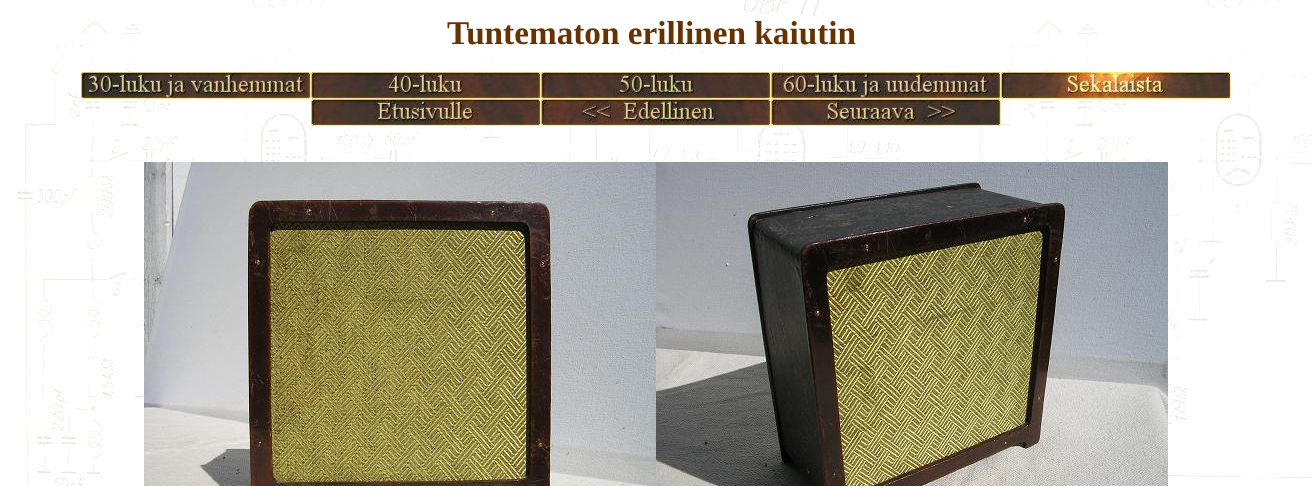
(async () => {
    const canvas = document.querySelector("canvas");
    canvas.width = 1312;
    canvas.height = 486;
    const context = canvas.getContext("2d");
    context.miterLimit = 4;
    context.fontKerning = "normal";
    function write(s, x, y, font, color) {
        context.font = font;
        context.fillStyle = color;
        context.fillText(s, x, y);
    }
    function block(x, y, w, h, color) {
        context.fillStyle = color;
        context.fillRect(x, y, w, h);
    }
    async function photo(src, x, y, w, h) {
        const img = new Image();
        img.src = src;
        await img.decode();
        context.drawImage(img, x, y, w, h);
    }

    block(0, 0, 1312, 486, "rgb(255, 255, 255)");
    await photo("media/1.png", 16, 0, 1296, 486);
    write("Tuntematon erillinen kaiutin", 447, 44, "bold 33.25px Liberation Serif", "rgb(102, 51, 0)");
    await photo("media/2.png", 81, 72, 230, 27);
    await photo("media/3.png", 311, 72, 230, 27);
    await photo("media/4.png", 541, 72, 230, 27);
    await photo("media/5.png", 771, 72, 230, 27);
    await photo("media/6.png", 1001, 72, 230, 27);
    await photo("media/7.png", 311, 99, 230, 27);
    await photo("media/8.png", 541, 99, 230, 27);
    await photo("media/9.png", 771, 99, 230, 27);
    await photo("media/10.png", 144, 162, 512, 324);
    await photo("media/11.png", 656, 162, 512, 324);
})();
